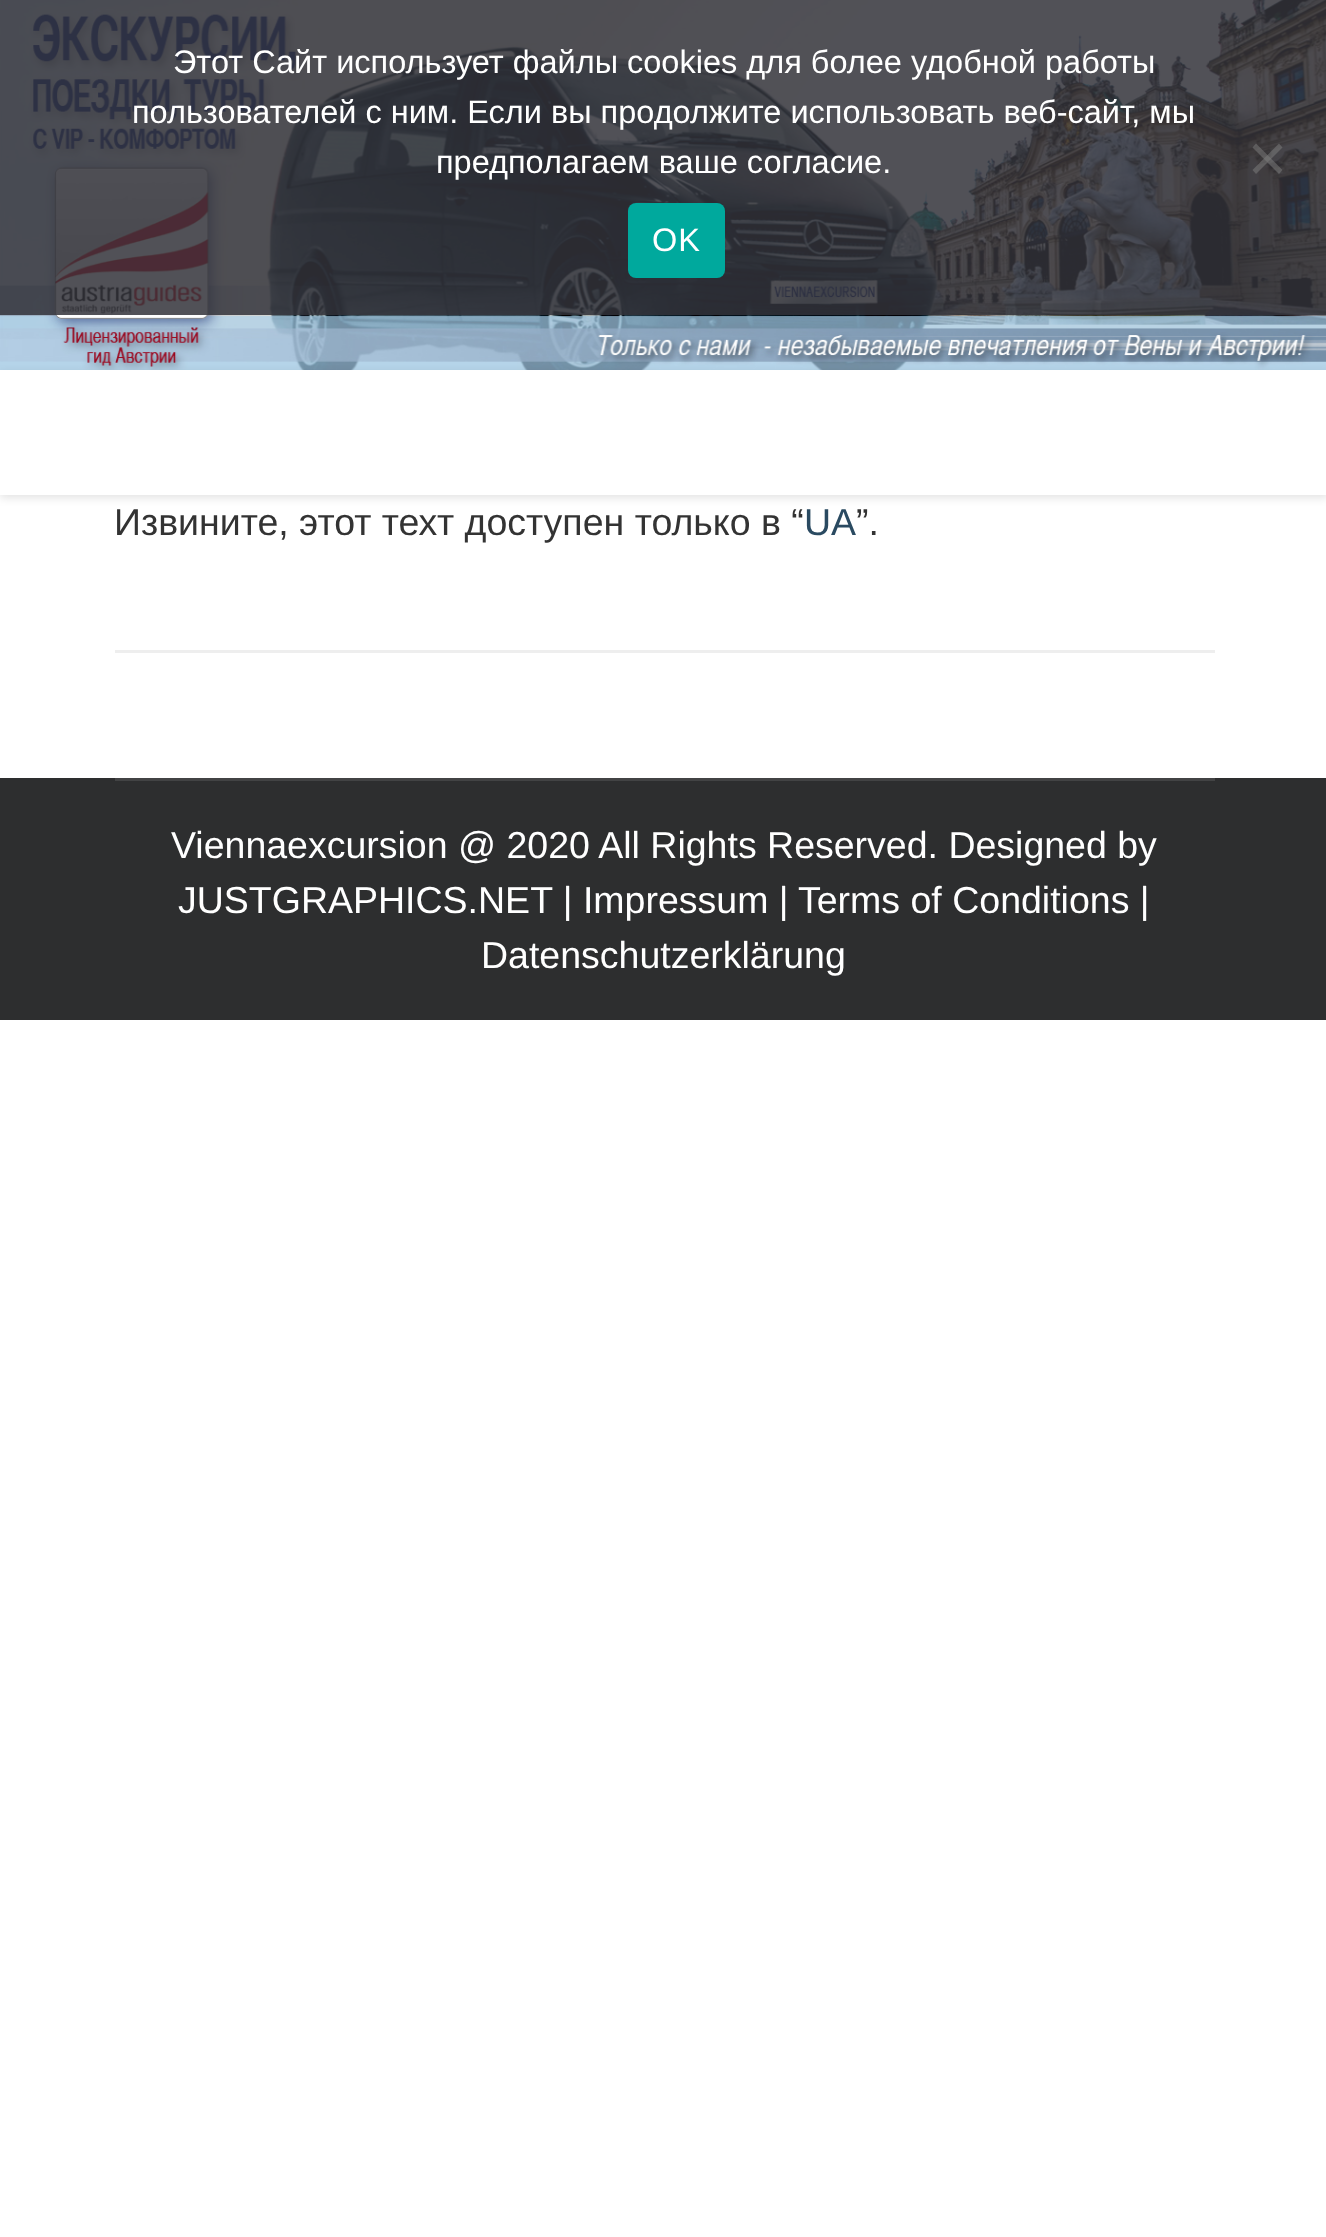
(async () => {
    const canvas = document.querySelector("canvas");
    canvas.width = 1326;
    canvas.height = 2237;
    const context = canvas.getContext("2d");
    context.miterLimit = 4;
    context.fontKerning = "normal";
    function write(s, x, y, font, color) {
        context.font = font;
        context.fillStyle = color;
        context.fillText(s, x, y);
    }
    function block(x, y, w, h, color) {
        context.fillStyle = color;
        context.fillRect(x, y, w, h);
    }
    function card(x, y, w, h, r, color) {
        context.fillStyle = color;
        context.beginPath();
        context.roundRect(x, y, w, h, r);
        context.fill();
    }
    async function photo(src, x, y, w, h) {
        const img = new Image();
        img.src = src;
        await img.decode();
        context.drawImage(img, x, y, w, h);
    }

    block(0, 0, 1326, 2237, "rgb(255, 255, 255)");
    await photo("media/1.png", 0, 0, 1326, 370);
    block(0, 0, 1326, 315, "rgba(50, 50, 58, 0.85)");
    write("Этот Сайт использует файлы cookies для более удобной работы", 173, 73, "32.5px Liberation Sans", "rgb(255, 255, 255)");
    write("пользователей с ним. Если вы продолжите использовать веб-сайт, мы", 132, 123, "32.5px Liberation Sans", "rgb(255, 255, 255)");
    write("предполагаем ваше согласие.", 436, 173, "32.5px Liberation Sans", "rgb(255, 255, 255)");
    context.fillStyle = "rgba(128, 128, 128, 0.5)";
    context.beginPath();
    context.moveTo(1279, 143.5);
    context.lineTo(1282.5, 147.5);
    context.lineTo(1256, 174);
    context.lineTo(1252.5, 170);
    context.closePath();
    context.fill();
    context.beginPath();
    context.moveTo(1252.5, 147.5);
    context.lineTo(1256, 143.5);
    context.lineTo(1282.5, 170);
    context.lineTo(1279, 174);
    context.closePath();
    context.fill();
    card(628, 203, 97, 75, 8, "rgb(0, 169, 157)");
    context.letterSpacing = "1px";
    write("OK", 652, 251, "32.5px Liberation Sans", "rgb(255, 255, 255)");
    context.save();
    context.beginPath();
    context.moveTo(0, 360);
    context.lineTo(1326, 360);
    context.lineTo(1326, 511);
    context.lineTo(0, 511);
    context.closePath();
    context.moveTo(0, 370);
    context.lineTo(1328, 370);
    context.lineTo(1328, 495);
    context.lineTo(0, 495);
    context.closePath();
    context.clip("evenodd");
    context.fillStyle = "rgba(0, 0, 0, 0.11)";
    context.filter = "blur(4px)";
    context.beginPath();
    context.rect(0, 373, 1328, 125);
    context.fill();
    context.filter = "none";
    context.restore();
    context.letterSpacing = "0px";
    write("Извините, этот техт доступен только в “", 114, 535, "37.5px Liberation Sans", "rgb(51, 51, 51)");
    write("UA", 804, 535, "37.5px Liberation Sans", "rgb(42, 74, 97)");
    write("”.", 856, 535, "37.5px Liberation Sans", "rgb(51, 51, 51)");
    block(115, 650, 1100, 3, "rgb(238, 238, 238)");
    block(0, 778, 1326, 242, "rgb(45, 46, 47)");
    block(115, 778, 1100, 3, "rgb(66, 67, 68)");
    write("Viennaexcursion @ 2020 All Rights Reserved. Designed by", 171, 858, "37.5px Liberation Sans", "rgb(255, 255, 255)");
    write("JUSTGRAPHICS.NET | Impressum |", 178, 913, "37.5px Liberation Sans", "rgb(255, 255, 255)");
    write("Terms of Conditions |", 798, 913, "37.5px Liberation Sans", "rgb(255, 255, 255)");
    write("Datenschutzerklärung", 481, 968, "37.5px Liberation Sans", "rgb(255, 255, 255)");
})();
